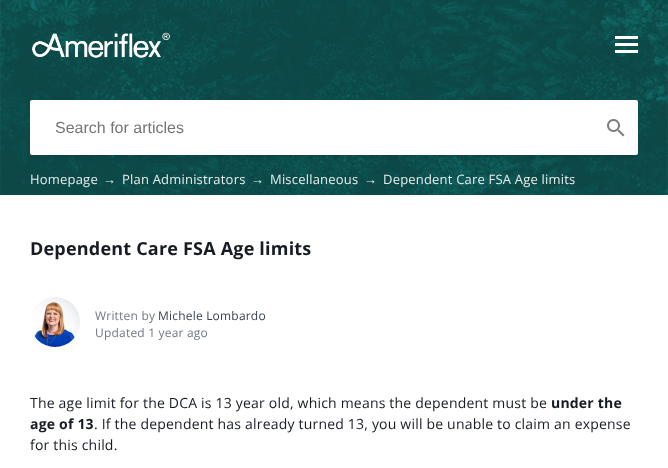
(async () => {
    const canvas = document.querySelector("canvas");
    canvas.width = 668;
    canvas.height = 468;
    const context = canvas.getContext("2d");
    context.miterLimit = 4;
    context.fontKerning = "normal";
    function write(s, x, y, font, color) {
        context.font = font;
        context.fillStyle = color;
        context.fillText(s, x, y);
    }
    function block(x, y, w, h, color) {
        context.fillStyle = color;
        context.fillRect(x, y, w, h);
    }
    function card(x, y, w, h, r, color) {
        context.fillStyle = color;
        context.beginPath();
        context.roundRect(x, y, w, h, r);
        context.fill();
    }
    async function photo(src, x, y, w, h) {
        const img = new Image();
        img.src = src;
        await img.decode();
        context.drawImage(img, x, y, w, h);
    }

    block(0, 0, 668, 468, "rgb(255, 255, 255)");
    await photo("media/1.png", 0, 0, 668, 195);
    await photo("media/2.png", 32, 32, 138, 26);
    block(615, 36, 23, 3, "rgb(255, 255, 255)");
    block(615, 43, 23, 3, "rgb(255, 255, 255)");
    block(615, 50, 23, 3, "rgb(255, 255, 255)");
    context.fillStyle = "rgba(0, 0, 0, 0.12)";
    context.filter = "blur(1.5px)";
    context.beginPath();
    context.rect(32, 105, 604, 51);
    context.fill();
    context.filter = "none";
    card(30, 100, 608, 55, 2, "rgb(255, 255, 255)");
    write("Search for articles", 55, 133, "16px Liberation Sans", "rgb(117, 117, 117)");
    await photo("media/3.png", 607, 119, 18, 18);
    context.letterSpacing = "0.2px";
    write("Homepage", 30, 184, "13px Open Sans", "rgb(231, 237, 237)");
    write("→", 103, 184, "13px Liberation Sans", "rgb(231, 237, 237)");
    write("Plan Administrators", 122, 184, "13px Open Sans", "rgb(231, 237, 237)");
    write("→", 251, 184, "13px Liberation Sans", "rgb(231, 237, 237)");
    write("Miscellaneous", 270, 184, "13px Open Sans", "rgb(231, 237, 237)");
    write("→", 364, 184, "13px Liberation Sans", "rgb(231, 237, 237)");
    write("Dependent Care FSA Age limits", 383, 184, "13px Open Sans", "rgb(231, 237, 237)");
    write("Dependent Care FSA Age limits", 30, 255, "bold 18px Open Sans", "rgb(23, 27, 36)");
    await photo("media/4.png", 32, 297, 48, 50);
    write("Written by", 95, 320, "12px Open Sans", "rgb(113, 122, 132)");
    write("Michele Lombardo", 158, 320, "12px Open Sans", "rgb(59, 68, 79)");
    write("Updated 1 year ago", 95, 337, "12px Open Sans", "rgb(113, 122, 132)");
    write("The age limit for the DCA is 13 year old, which means the dependent must be", 30, 408, "14px Open Sans", "rgb(23, 27, 36)");
    write("under the", 551, 408, "bold 14px Open Sans", "rgb(23, 27, 36)");
    write("age of 13", 30, 429, "bold 14px Open Sans", "rgb(23, 27, 36)");
    write(". If the dependent has already turned 13, you will be unable to claim an expense", 94, 429, "14px Open Sans", "rgb(23, 27, 36)");
    write("for this child.", 30, 450, "14px Open Sans", "rgb(23, 27, 36)");
})();
